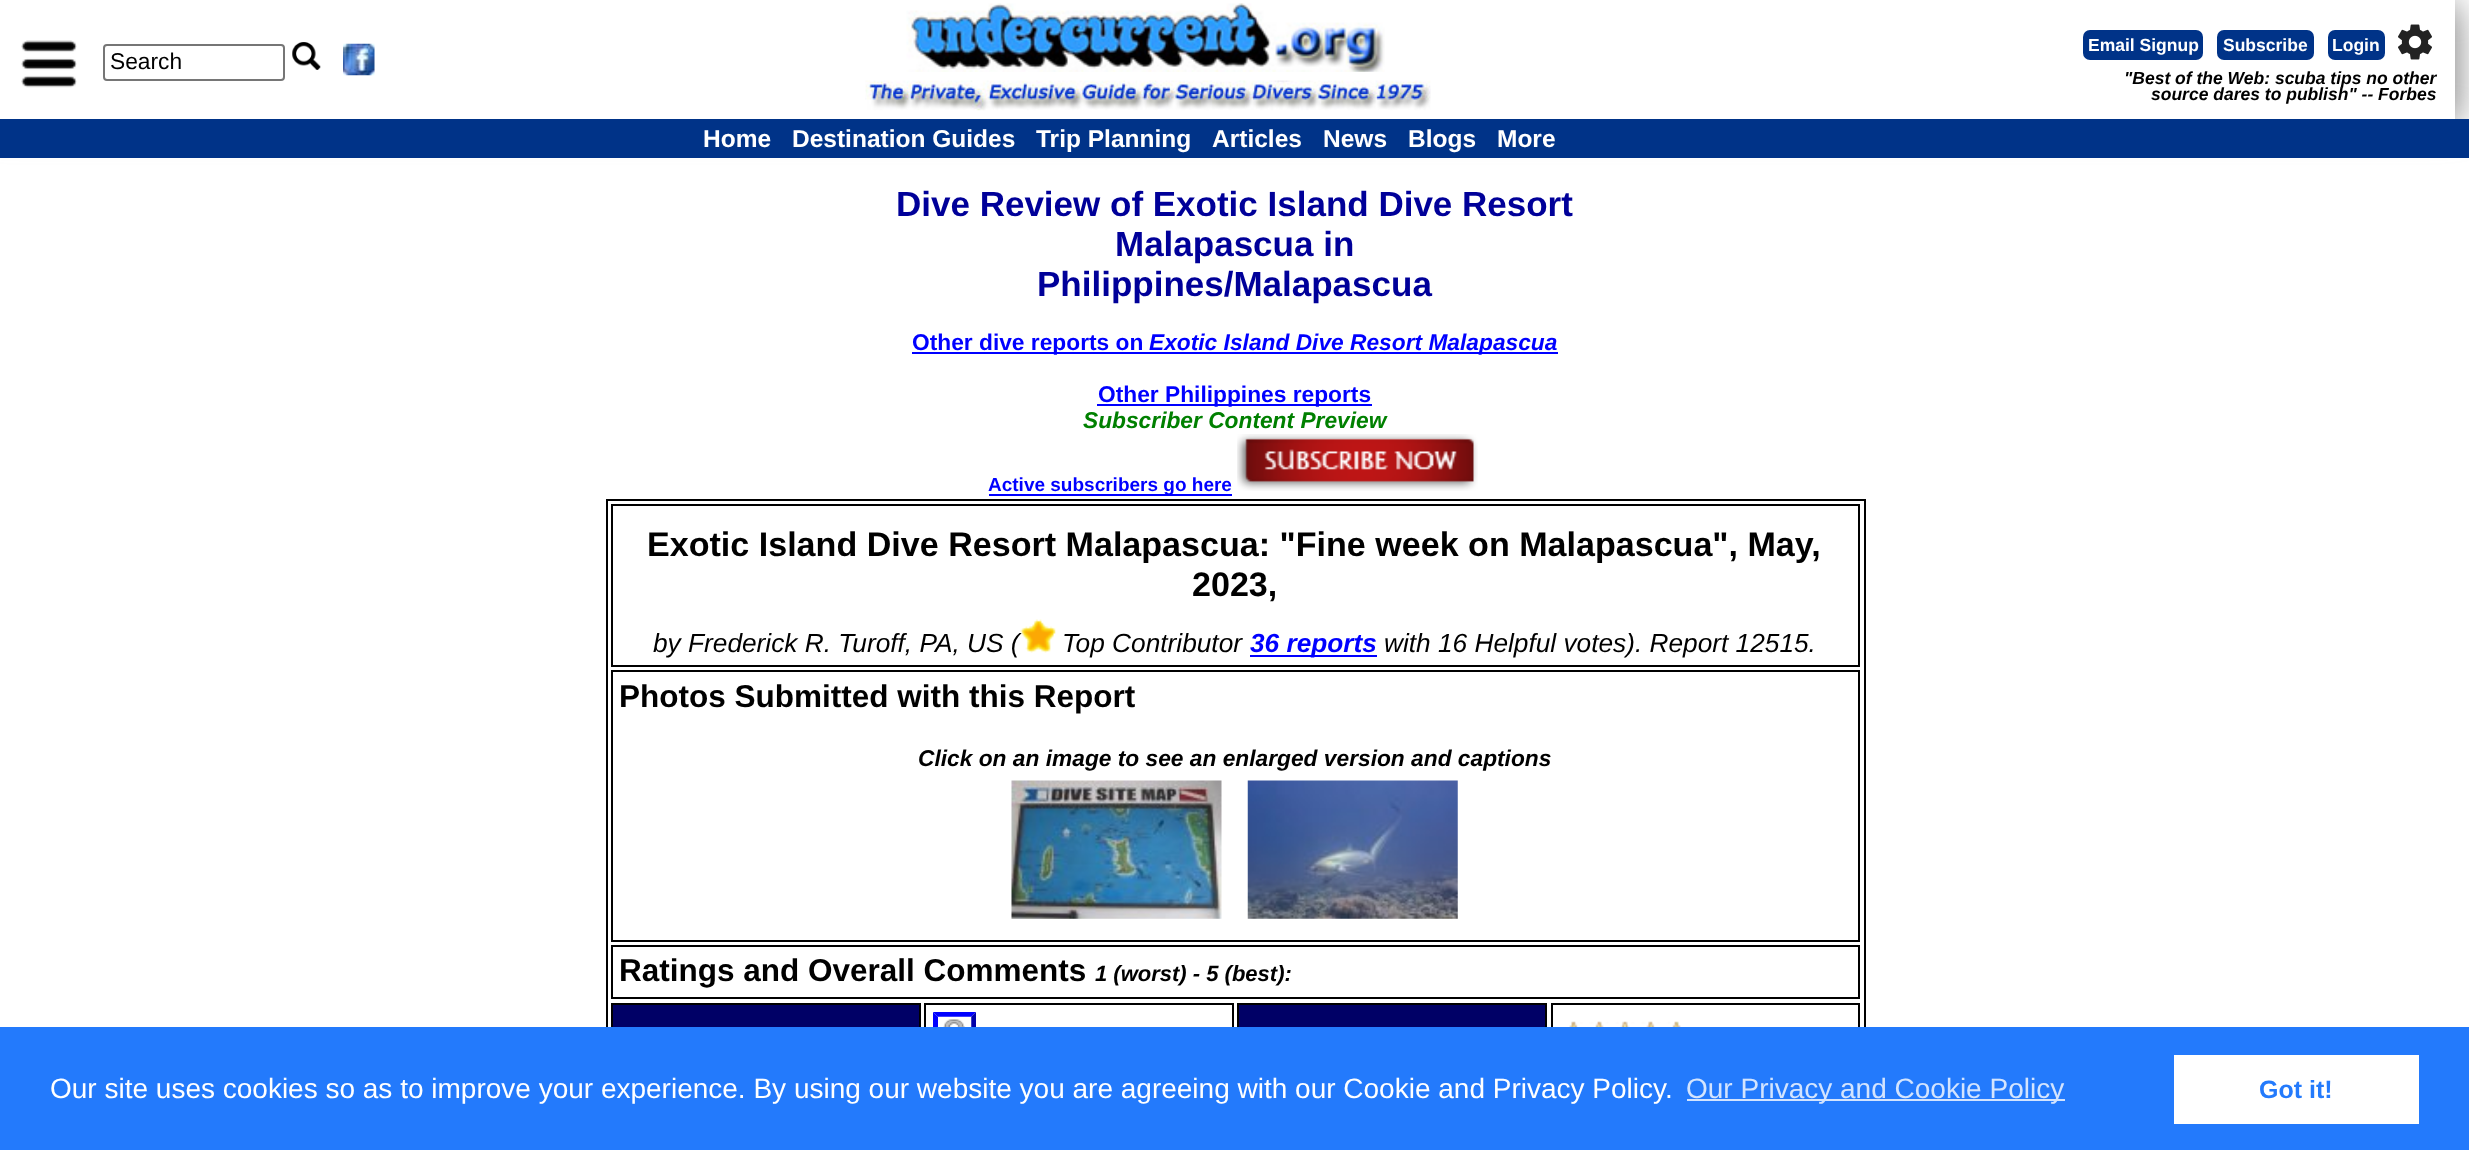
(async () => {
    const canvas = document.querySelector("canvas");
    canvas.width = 2469;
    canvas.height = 1150;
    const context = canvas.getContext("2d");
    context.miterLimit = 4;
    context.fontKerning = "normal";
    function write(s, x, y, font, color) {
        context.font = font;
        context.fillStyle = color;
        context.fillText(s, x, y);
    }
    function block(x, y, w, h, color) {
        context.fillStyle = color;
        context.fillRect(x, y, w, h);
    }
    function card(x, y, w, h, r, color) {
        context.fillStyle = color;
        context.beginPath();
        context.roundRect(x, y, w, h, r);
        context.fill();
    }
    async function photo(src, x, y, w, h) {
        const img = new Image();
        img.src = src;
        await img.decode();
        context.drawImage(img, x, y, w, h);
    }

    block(0, 0, 2469, 1150, "rgb(255, 255, 255)");
    context.save();
    context.beginPath();
    context.moveTo(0, 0);
    context.lineTo(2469, 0);
    context.lineTo(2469, 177);
    context.lineTo(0, 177);
    context.closePath();
    context.moveTo(-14, 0);
    context.lineTo(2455, 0);
    context.lineTo(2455, 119);
    context.lineTo(-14, 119);
    context.closePath();
    context.clip("evenodd");
    context.fillStyle = "rgb(136, 136, 136)";
    context.filter = "blur(17.5px)";
    context.beginPath();
    context.rect(-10, 4, 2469, 119);
    context.fill();
    context.filter = "none";
    context.restore();
    await photo("media/1.png", 21, 40, 56, 48);
    context.beginPath();
    context.roundRect(104, 45, 180, 35, 3);
    context.strokeStyle = "rgb(118, 118, 118)";
    context.lineWidth = 2;
    context.stroke();
    write("Search", 110, 69, "22.75px Liberation Sans", "rgb(0, 0, 0)");
    await photo("media/2.png", 292, 42, 29, 28);
    await photo("media/3.png", 343, 43, 32, 33);
    await photo("media/4.png", 906, 3, 479, 69);
    await photo("media/5.png", 865, 80, 566, 31);
    card(2083, 30, 120, 30, 7, "rgb(0, 51, 136)");
    write("Email Signup", 2088, 51, "bold 17.5px Liberation Sans", "rgb(255, 255, 255)");
    card(2217, 30, 97, 30, 7, "rgb(0, 51, 136)");
    write("Subscribe", 2223, 51, "bold 17.5px Liberation Sans", "rgb(255, 255, 255)");
    card(2328, 30, 57, 30, 7, "rgb(0, 51, 136)");
    write("Login", 2332, 51, "bold 17.5px Liberation Sans", "rgb(255, 255, 255)");
    await photo("media/6.png", 2398, 24, 34, 36);
    write("\"Best of the Web: scuba tips no other", 2124, 84, "italic bold 17.5px Liberation Sans", "rgb(0, 0, 0)");
    write("source dares to publish\" -- Forbes", 2151, 100, "italic bold 17.5px Liberation Sans", "rgb(0, 0, 0)");
    block(0, 119, 2469, 39, "rgb(0, 51, 136)");
    write("Home", 703, 147, "bold 24.5px Liberation Sans", "rgb(255, 255, 255)");
    write("Destination Guides", 792, 147, "bold 24.5px Liberation Sans", "rgb(255, 255, 255)");
    write("Trip Planning", 1036, 147, "bold 24.5px Liberation Sans", "rgb(255, 255, 255)");
    write("Articles", 1212, 147, "bold 24.5px Liberation Sans", "rgb(255, 255, 255)");
    write("News", 1323, 147, "bold 24.5px Liberation Sans", "rgb(255, 255, 255)");
    write("Blogs", 1408, 147, "bold 24.5px Liberation Sans", "rgb(255, 255, 255)");
    write("More", 1497, 147, "bold 24.5px Liberation Sans", "rgb(255, 255, 255)");
    write("Dive Review of Exotic Island Dive Resort", 896, 216, "bold 35px Liberation Sans", "rgb(0, 0, 153)");
    write("Malapascua in", 1115, 256, "bold 35px Liberation Sans", "rgb(0, 0, 153)");
    write("Philippines/Malapascua", 1037, 296, "bold 35px Liberation Sans", "rgb(0, 0, 153)");
    block(912, 352, 646, 2, "rgb(0, 0, 255)");
    write("Other dive reports on", 912, 350, "bold 22.75px Liberation Sans", "rgb(0, 0, 255)");
    write("Exotic Island Dive Resort Malapascua", 1149, 350, "italic bold 22.75px Liberation Sans", "rgb(0, 0, 255)");
    block(1097, 404, 275, 2, "rgb(0, 0, 255)");
    write("Other Philippines reports", 1098, 402, "bold 22.75px Liberation Sans", "rgb(0, 0, 255)");
    write("Subscriber Content Preview", 1083, 428, "italic bold 22.75px Liberation Sans", "rgb(0, 128, 0)");
    block(989, 494, 243, 2, "rgb(0, 0, 255)");
    write("Active subscribers go here", 988, 491, "bold 19px Liberation Sans", "rgb(0, 0, 255)");
    await photo("media/7.png", 1237, 434, 241, 57);
    context.strokeStyle = "rgb(0, 0, 0)";
    context.strokeRect(607, 500, 1258, 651);
    context.strokeRect(612, 505, 1247, 161);
    write("Exotic Island Dive Resort Malapascua: \"Fine week on Malapascua\", May,", 647, 556, "bold 34.1px Liberation Sans", "rgb(0, 0, 0)");
    write("2023,", 1192, 596, "bold 34.1px Liberation Sans", "rgb(0, 0, 0)");
    write("by Frederick R. Turoff, PA, US (", 653, 652, "italic 26.25px Liberation Sans", "rgb(0, 0, 0)");
    await photo("media/8.png", 1020, 619, 36, 34);
    write("Top Contributor", 1062, 652, "italic 26.25px Liberation Sans", "rgb(0, 0, 0)");
    block(1250, 655, 127, 2, "rgb(0, 0, 255)");
    write("36 reports", 1250, 652, "italic bold 26.25px Liberation Sans", "rgb(0, 0, 255)");
    write("with 16 Helpful votes). Report 12515.", 1384, 652, "italic 26.25px Liberation Sans", "rgb(0, 0, 0)");
    context.strokeRect(612, 671, 1247, 270);
    write("Photos Submitted with this Report", 619, 707, "bold 31.5px Liberation Sans", "rgb(0, 0, 0)");
    write("Click on an image to see an enlarged version and captions", 918, 766, "italic bold 22.75px Liberation Sans", "rgb(0, 0, 0)");
    await photo("media/9.png", 1011, 780, 211, 139);
    await photo("media/10.png", 1247, 780, 211, 139);
    context.strokeRect(612, 946, 1247, 52);
    write("Ratings and Overall Comments", 619, 981, "bold 31.5px Liberation Sans", "rgb(0, 0, 0)");
    write("1 (worst) - 5 (best):", 1095, 981, "italic bold 22px Liberation Sans", "rgb(0, 0, 0)");
    block(613, 1005, 306, 22, "rgb(0, 0, 102)");
    context.strokeRect(612, 1004, 308, 66);
    context.strokeRect(925, 1004, 308, 66);
    context.fillStyle = "rgb(0, 0, 255)";
    context.beginPath();
    context.moveTo(933, 1012);
    context.lineTo(976, 1012);
    context.lineTo(971, 1017);
    context.lineTo(938, 1017);
    context.closePath();
    context.fill();
    context.beginPath();
    context.moveTo(933, 1057);
    context.lineTo(933, 1012);
    context.lineTo(938, 1017);
    context.lineTo(938, 1052);
    context.closePath();
    context.fill();
    context.fillStyle = "rgb(0, 0, 170)";
    context.beginPath();
    context.moveTo(976, 1012);
    context.lineTo(976, 1057);
    context.lineTo(971, 1052);
    context.lineTo(971, 1017);
    context.closePath();
    context.fill();
    await photo("media/11.png", 938, 1016, 34, 11);
    block(1239, 1005, 306, 22, "rgb(0, 0, 102)");
    context.strokeRect(1238, 1004, 308, 66);
    context.strokeRect(1552, 1004, 307, 66);
    await photo("media/12.png", 1569, 1021, 112, 6);
    block(0, 1027, 2469, 123, "rgb(35, 122, 252)");
    write("Our site uses cookies so as to improve your experience. By using our website you are agreeing with our Cookie and Privacy Policy.", 50, 1098, "28px Liberation Sans", "rgb(255, 255, 255)");
    block(1687, 1099, 378, 2, "rgb(211, 228, 254)");
    write("Our Privacy and Cookie Policy", 1686, 1098, "28px Liberation Sans", "rgb(211, 228, 254)");
    block(2174, 1055, 245, 69, "rgb(255, 255, 255)");
    write("Got it!", 2259, 1098, "bold 25px Liberation Sans", "rgb(35, 122, 252)");
})();
